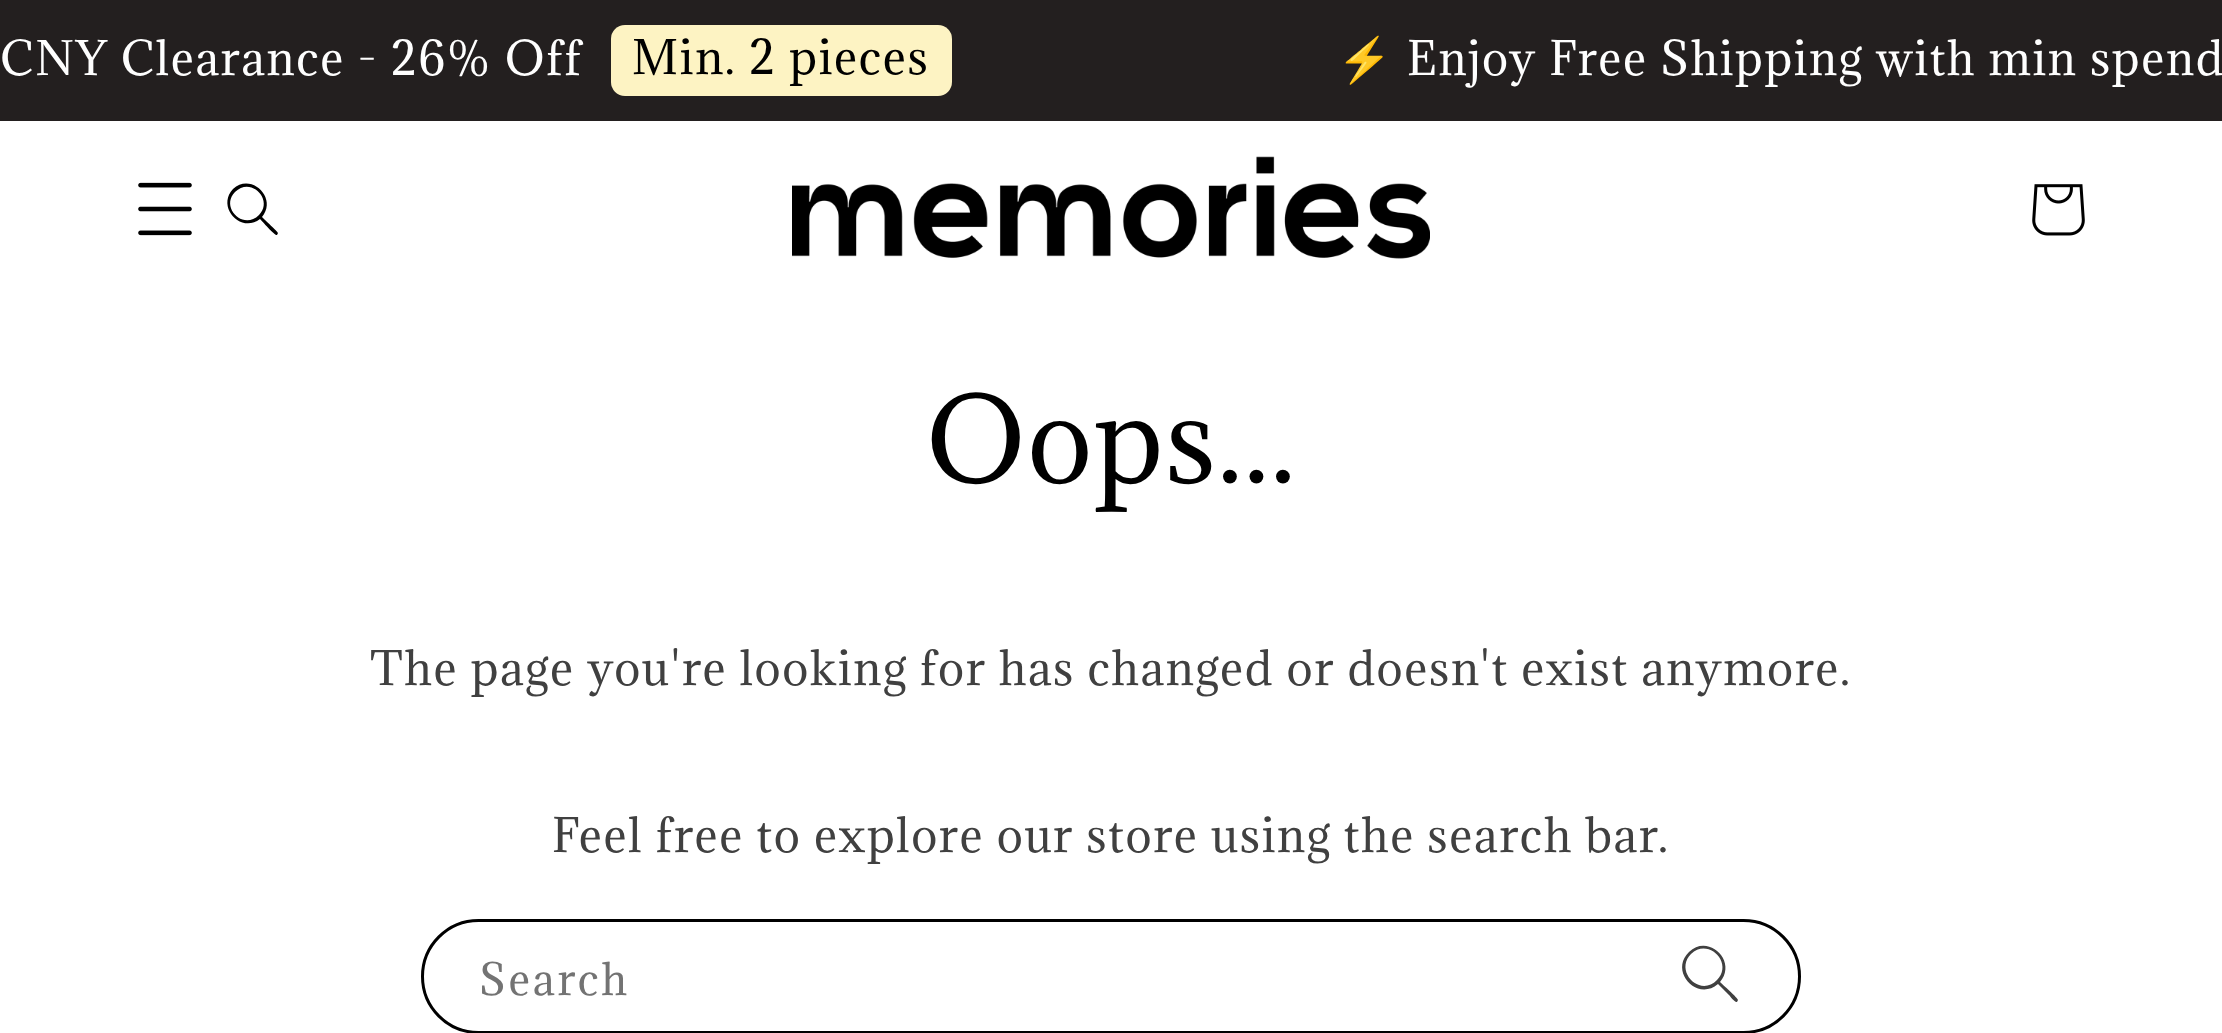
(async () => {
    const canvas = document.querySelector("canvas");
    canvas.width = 2222;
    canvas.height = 1033;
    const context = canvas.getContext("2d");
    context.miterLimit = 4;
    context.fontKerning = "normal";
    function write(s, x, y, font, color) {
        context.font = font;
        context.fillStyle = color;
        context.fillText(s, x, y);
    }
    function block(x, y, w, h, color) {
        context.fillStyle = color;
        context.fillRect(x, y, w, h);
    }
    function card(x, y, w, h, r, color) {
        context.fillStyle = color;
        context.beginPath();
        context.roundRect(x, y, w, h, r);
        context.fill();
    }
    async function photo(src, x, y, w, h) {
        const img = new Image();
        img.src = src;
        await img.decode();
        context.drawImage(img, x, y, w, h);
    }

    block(0, 0, 2222, 1033, "rgb(255, 255, 255)");
    block(0, 0, 2222, 121, "rgb(35, 31, 31)");
    context.letterSpacing = "1.65px";
    write("CNY Clearance - 26% Off", 0, 75, "44px Adamina", "rgb(254, 254, 254)");
    card(611, 25, 341, 71, 14, "rgb(253, 243, 195)");
    write("Min. 2 pieces", 632, 74, "44px Adamina", "rgb(0, 0, 0)");
    write("⚡️", 1337, 75, "44px Noto Color Emoji", "rgb(254, 254, 254)");
    write("Enjoy Free Shipping with min spend", 1407, 75, "44px Adamina", "rgb(254, 254, 254)");
    await photo("media/1.png", 138, 182, 54, 54);
    context.fillStyle = "rgb(0, 0, 0)";
    context.beginPath();
    context.moveTo(259, 215);
    context.bezierCurveTo(243, 231, 220, 207, 235, 192);
    context.bezierCurveTo(251, 176, 274, 200, 259, 215);
    context.closePath();
    context.moveTo(260, 219);
    context.bezierCurveTo(241, 234, 216, 207, 233, 189);
    context.bezierCurveTo(251, 172, 278, 198, 262, 217);
    context.bezierCurveTo(264, 219, 278, 232, 278, 233);
    context.lineTo(277, 235);
    context.bezierCurveTo(275, 236, 262, 221, 260, 219);
    context.closePath();
    context.fill("evenodd");
    await photo("media/2.png", 792, 156, 638, 103);
    await photo("media/3.png", 2032, 184, 53, 52);
    write("Oops...", 926, 482, "110px Adamina", "rgb(0, 0, 0)");
    write("The page you're looking for has changed or doesn't exist anymore.", 370, 685, "44px Adamina", "rgb(64, 64, 64)");
    write("Feel free to explore our store using the search bar.", 552, 852, "44px Adamina", "rgb(64, 64, 64)");
    context.beginPath();
    context.roundRect(422.5, 920.5, 1377, 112, 56);
    context.strokeStyle = "rgb(0, 0, 0)";
    context.lineWidth = 3;
    context.stroke();
    context.letterSpacing = "2.75px";
    write("Search", 479, 995, "41px Adamina", "rgb(115, 115, 115)");
    context.fillStyle = "rgb(64, 64, 64)";
    context.beginPath();
    context.moveTo(1717, 980);
    context.bezierCurveTo(1700, 998, 1674, 971, 1691, 954);
    context.bezierCurveTo(1708, 937, 1734, 963, 1717, 980);
    context.closePath();
    context.moveTo(1718, 984);
    context.bezierCurveTo(1697, 1002, 1669, 971, 1689, 952);
    context.bezierCurveTo(1708, 933, 1738, 961, 1720, 982);
    context.bezierCurveTo(1722, 984, 1738, 998, 1738, 1000);
    context.lineTo(1737, 1002);
    context.bezierCurveTo(1735, 1003, 1730, 996, 1729, 995);
    context.closePath();
    context.fill("evenodd");
})();
